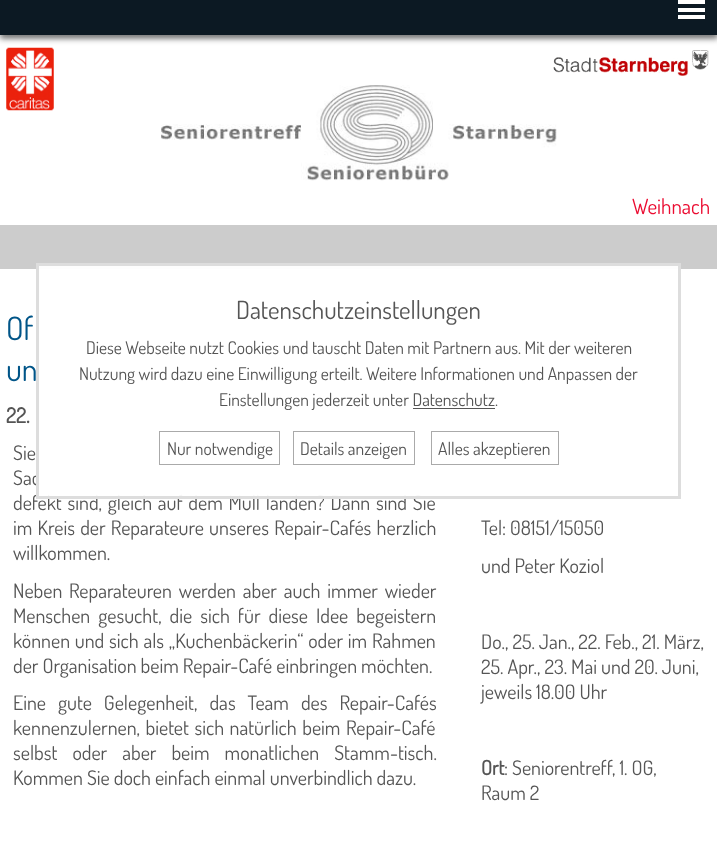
(async () => {
    const canvas = document.querySelector("canvas");
    canvas.width = 717;
    canvas.height = 858;
    const context = canvas.getContext("2d");
    context.miterLimit = 4;
    context.fontKerning = "normal";
    function write(s, x, y, font, color) {
        context.font = font;
        context.fillStyle = color;
        context.fillText(s, x, y);
    }
    function block(x, y, w, h, color) {
        context.fillStyle = color;
        context.fillRect(x, y, w, h);
    }
    async function photo(src, x, y, w, h) {
        const img = new Image();
        img.src = src;
        await img.decode();
        context.drawImage(img, x, y, w, h);
    }

    block(0, 0, 717, 858, "rgb(255, 255, 255)");
    context.fillStyle = "rgb(85, 85, 85)";
    context.filter = "blur(3px)";
    context.beginPath();
    context.rect(0, 31, 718, 7);
    context.fill();
    context.filter = "none";
    block(0, 0, 717, 35, "rgb(12, 25, 35)");
    block(678, 0, 27, 4, "rgb(255, 255, 255)");
    block(678, 8, 27, 4, "rgb(255, 255, 255)");
    block(678, 15, 27, 4, "rgb(255, 255, 255)");
    await photo("media/1.png", 6, 47, 48, 64);
    await photo("media/2.png", 553, 50, 156, 26);
    await photo("media/3.png", 161, 85, 396, 96);
    write("Weihnach", 632, 214, "21px Dosis", "rgb(235, 12, 49)");
    block(0, 225, 717, 44, "rgb(204, 204, 204)");
    write("un", 6, 381, "32px Dosis", "rgb(0, 85, 136)");
    context.wordSpacing = "1px";
    write("Sac", 13, 485, "20px Dosis", "rgb(85, 85, 85)");
    context.wordSpacing = "1.75px";
    write("defekt sind, gleich auf dem Müll landen? Dann sind Sie", 13, 510, "20px Dosis", "rgb(85, 85, 85)");
    context.fillStyle = "rgba(255, 255, 255, 0.95)";
    context.beginPath();
    context.rect(37.5, 264.5, 642, 233);
    context.fill();
    context.strokeStyle = "rgb(221, 221, 221)";
    context.lineWidth = 3;
    context.stroke();
    context.wordSpacing = "0px";
    write("Datenschutzeinstellungen", 236, 319, "25px Dosis", "rgb(85, 85, 85)");
    write("Diese Webseite nutzt Cookies und tauscht Daten mit Partnern aus. Mit der weiteren", 86, 354, "17.5px Dosis", "rgb(85, 85, 85)");
    write("Nutzung wird dazu eine Einwilligung erteilt. Weitere Informationen und Anpassen der", 79, 380, "17.5px Dosis", "rgb(85, 85, 85)");
    write("Einstellungen jederzeit unter Datenschutz.", 219, 406, "17.5px Dosis", "rgb(85, 85, 85)");
    block(413, 408, 82, 1, "rgb(85, 85, 85)");
    context.strokeStyle = "rgb(170, 170, 170)";
    context.lineWidth = 1;
    context.strokeRect(159.5, 431.5, 120, 33);
    write("Nur notwendige", 167, 455, "17.5px Dosis", "rgb(85, 85, 85)");
    context.strokeRect(293.5, 431.5, 121, 33);
    write("Details anzeigen", 300, 455, "17.5px Dosis", "rgb(85, 85, 85)");
    context.strokeRect(431.5, 431.5, 127, 33);
    write("Alles akzeptieren", 438, 455, "17.5px Dosis", "rgb(85, 85, 85)");
    write("Of", 6, 340, "32px Dosis", "rgb(0, 85, 136)");
    write("22.", 6, 423, "bold 21px Dosis", "rgb(85, 85, 85)");
    context.wordSpacing = "10px";
    write("Sie", 13, 460, "20px Dosis", "rgb(85, 85, 85)");
    context.wordSpacing = "1.25px";
    write("im Kreis der Reparateure unseres Repair-Cafés herzlich", 13, 535, "20px Dosis", "rgb(85, 85, 85)");
    context.wordSpacing = "0px";
    write("willkommen.", 13, 560, "20px Dosis", "rgb(85, 85, 85)");
    context.wordSpacing = "2.75px";
    write("Neben Reparateuren werden aber auch immer wieder", 13, 598, "20px Dosis", "rgb(85, 85, 85)");
    context.wordSpacing = "4px";
    write("Menschen gesucht, die sich für diese Idee begeistern", 13, 623, "20px Dosis", "rgb(85, 85, 85)");
    context.wordSpacing = "0.75px";
    write("können und sich als „Kuchenbäckerin“ oder im Rahmen", 13, 648, "20px Dosis", "rgb(85, 85, 85)");
    context.wordSpacing = "0px";
    write("der Organisation beim Repair-Café einbringen möchten.", 13, 673, "20px Dosis", "rgb(85, 85, 85)");
    context.wordSpacing = "8px";
    write("Eine gute Gelegenheit, das Team des Repair-Cafés", 13, 710, "20px Dosis", "rgb(85, 85, 85)");
    context.wordSpacing = "1.5px";
    write("kennenzulernen, bietet sich natürlich beim Repair-Café", 13, 735, "20px Dosis", "rgb(85, 85, 85)");
    context.wordSpacing = "11px";
    write("selbst oder aber beim monatlichen Stamm-tisch.", 13, 760, "20px Dosis", "rgb(85, 85, 85)");
    context.wordSpacing = "0px";
    write("Kommen Sie doch einfach einmal unverbindlich dazu.", 13, 785, "20px Dosis", "rgb(85, 85, 85)");
    write("Tel: 08151/15050", 481, 535, "20px Dosis", "rgb(85, 85, 85)");
    write("und Peter Koziol", 481, 573, "20px Dosis", "rgb(85, 85, 85)");
    write("Do., 25. Jan., 22. Feb., 21. März,", 481, 649, "20px Dosis", "rgb(85, 85, 85)");
    write("25. Apr., 23. Mai und 20. Juni,", 481, 674, "20px Dosis", "rgb(85, 85, 85)");
    write("jeweils 18.00 Uhr", 481, 699, "20px Dosis", "rgb(85, 85, 85)");
    write("Ort", 481, 775, "bold 20px Dosis", "rgb(85, 85, 85)");
    write(": Seniorentreff, 1. OG,", 504, 775, "20px Dosis", "rgb(85, 85, 85)");
    write("Raum 2", 481, 800, "20px Dosis", "rgb(85, 85, 85)");
})();
